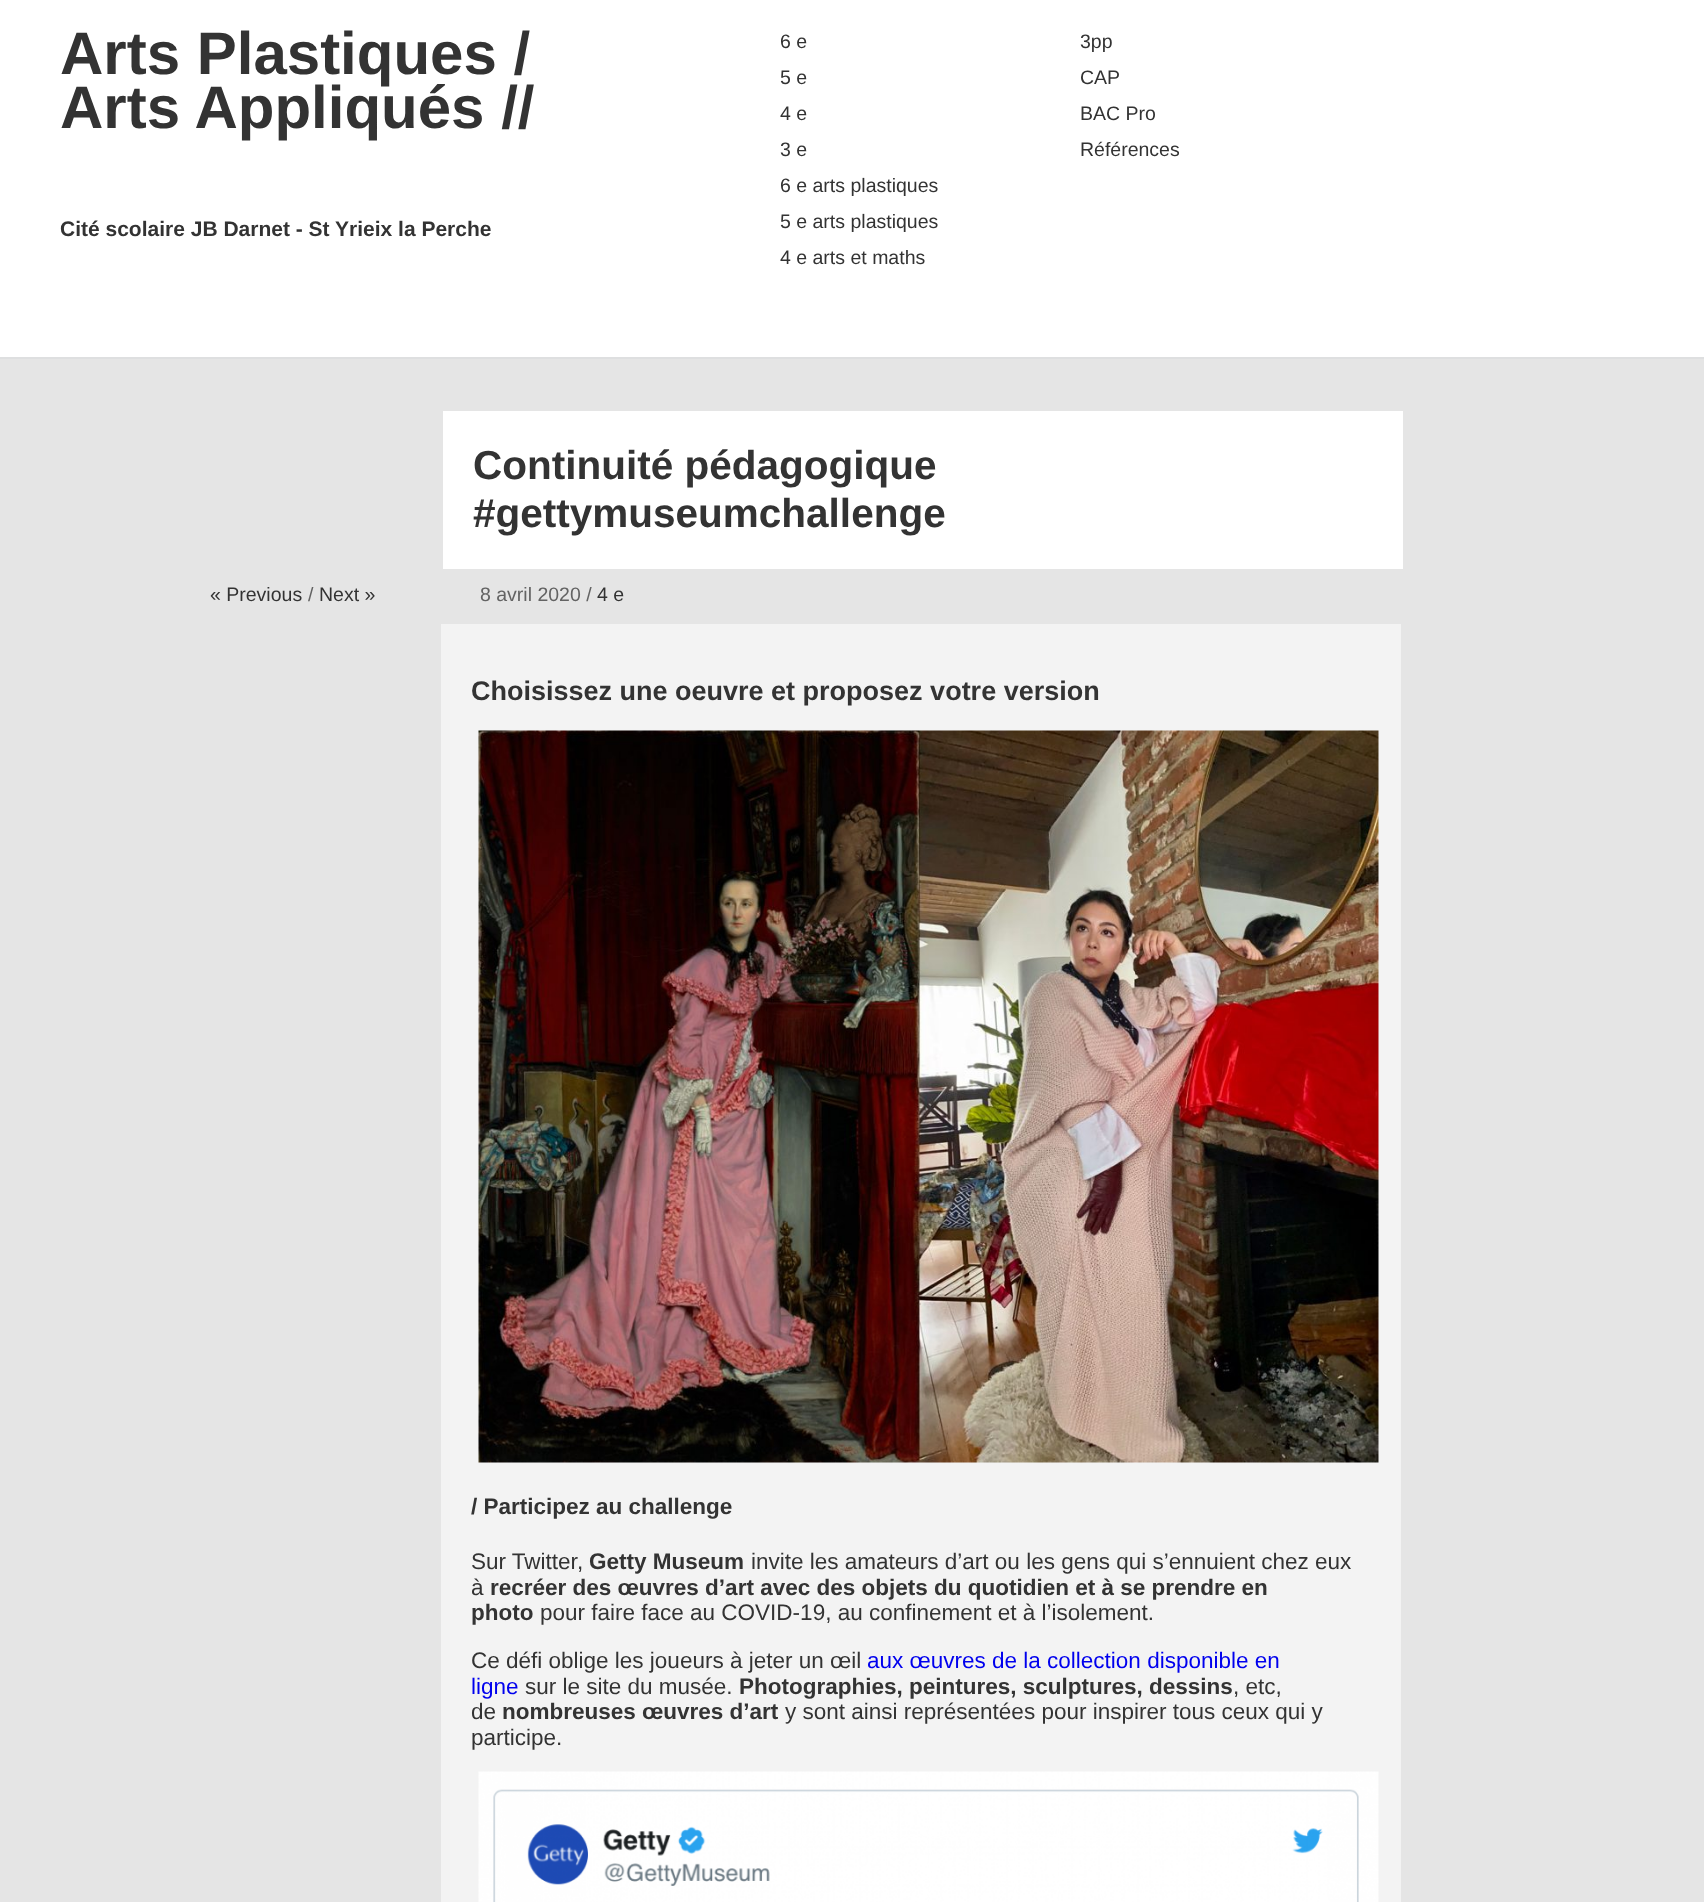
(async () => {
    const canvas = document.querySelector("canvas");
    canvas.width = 1704;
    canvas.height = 1902;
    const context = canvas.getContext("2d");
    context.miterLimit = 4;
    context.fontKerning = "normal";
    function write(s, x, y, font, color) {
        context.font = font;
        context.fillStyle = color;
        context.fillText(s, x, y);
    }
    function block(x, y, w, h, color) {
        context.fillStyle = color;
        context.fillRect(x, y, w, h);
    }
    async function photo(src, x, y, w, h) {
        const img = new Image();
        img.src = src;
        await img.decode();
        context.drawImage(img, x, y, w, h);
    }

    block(0, 0, 1704, 1902, "rgb(229, 229, 229)");
    block(0, 0, 1704, 357, "rgb(255, 255, 255)");
    block(0, 357, 1704, 2, "rgb(222, 223, 224)");
    write("Arts Plastiques /", 60, 74, "bold 60px Liberation Sans", "rgb(51, 51, 51)");
    write("Arts Appliqués //", 60, 128, "bold 60px Liberation Sans", "rgb(51, 51, 51)");
    write("Cité scolaire JB Darnet - St Yrieix la Perche", 60, 236, "bold 21px Liberation Sans", "rgb(51, 51, 51)");
    write("6 e", 780, 48, "19.5px Liberation Sans", "rgb(51, 51, 51)");
    write("5 e", 780, 84, "19.5px Liberation Sans", "rgb(51, 51, 51)");
    write("4 e", 780, 120, "19.5px Liberation Sans", "rgb(51, 51, 51)");
    write("3 e", 780, 156, "19.5px Liberation Sans", "rgb(51, 51, 51)");
    write("6 e arts plastiques", 780, 192, "19.5px Liberation Sans", "rgb(51, 51, 51)");
    write("5 e arts plastiques", 780, 228, "19.5px Liberation Sans", "rgb(51, 51, 51)");
    write("4 e arts et maths", 780, 264, "19.5px Liberation Sans", "rgb(51, 51, 51)");
    write("3pp", 1080, 48, "19.5px Liberation Sans", "rgb(51, 51, 51)");
    write("CAP", 1080, 84, "19.5px Liberation Sans", "rgb(51, 51, 51)");
    write("BAC Pro", 1080, 120, "19.5px Liberation Sans", "rgb(51, 51, 51)");
    write("Références", 1080, 156, "19.5px Liberation Sans", "rgb(51, 51, 51)");
    block(443, 411, 960, 158, "rgb(255, 255, 255)");
    write("Continuité pédagogique", 473, 479, "bold 40.5px Liberation Sans", "rgb(51, 51, 51)");
    write("#gettymuseumchallenge", 473, 527, "bold 40.5px Liberation Sans", "rgb(51, 51, 51)");
    write("« Previous", 210, 601, "19.5px Liberation Sans", "rgb(51, 51, 51)");
    write("/", 308, 601, "19.5px Liberation Sans", "rgb(99, 99, 99)");
    write("Next »", 319, 601, "19.5px Liberation Sans", "rgb(51, 51, 51)");
    write("8 avril 2020 /", 480, 601, "19.5px Liberation Sans", "rgb(99, 99, 99)");
    write("4 e", 597, 601, "19.5px Liberation Sans", "rgb(51, 51, 51)");
    block(441, 624, 960, 1278, "rgb(243, 243, 243)");
    write("Choisissez une oeuvre et proposez votre version", 471, 700, "bold 27px Liberation Sans", "rgb(51, 51, 51)");
    await photo("media/1.png", 478, 730, 901, 733);
    write("/ Participez au challenge", 471, 1514, "bold 22.5px Liberation Sans", "rgb(51, 51, 51)");
    write("Sur Twitter,", 471, 1569, "22.5px Liberation Sans", "rgb(51, 51, 51)");
    write("Getty Museum", 589, 1569, "bold 22.5px Liberation Sans", "rgb(51, 51, 51)");
    write("invite les amateurs d’art ou les gens qui s’ennuient chez eux", 751, 1569, "22.5px Liberation Sans", "rgb(51, 51, 51)");
    write("à", 471, 1595, "22.5px Liberation Sans", "rgb(51, 51, 51)");
    write("recréer des œuvres d’art avec des objets du quotidien et à se prendre en", 490, 1595, "bold 22.5px Liberation Sans", "rgb(51, 51, 51)");
    write("photo", 471, 1620, "bold 22.5px Liberation Sans", "rgb(51, 51, 51)");
    write("pour faire face au COVID-19, au confinement et à l’isolement.", 540, 1620, "22.5px Liberation Sans", "rgb(51, 51, 51)");
    write("Ce défi oblige les joueurs à jeter un œil", 471, 1668, "22.5px Liberation Sans", "rgb(51, 51, 51)");
    write("aux œuvres de la collection disponible en", 867, 1668, "22.5px Liberation Sans", "rgb(0, 0, 238)");
    write("ligne", 471, 1694, "22.5px Liberation Sans", "rgb(0, 0, 238)");
    write("sur le site du musée.", 525, 1694, "22.5px Liberation Sans", "rgb(51, 51, 51)");
    write("Photographies, peintures, sculptures, dessins", 739, 1694, "bold 22.5px Liberation Sans", "rgb(51, 51, 51)");
    write(", etc,", 1233, 1694, "22.5px Liberation Sans", "rgb(51, 51, 51)");
    write("de", 471, 1719, "22.5px Liberation Sans", "rgb(51, 51, 51)");
    write("nombreuses œuvres d’art", 502, 1719, "bold 22.5px Liberation Sans", "rgb(51, 51, 51)");
    write("y sont ainsi représentées pour inspirer tous ceux qui y", 785, 1719, "22.5px Liberation Sans", "rgb(51, 51, 51)");
    write("participe.", 471, 1745, "22.5px Liberation Sans", "rgb(51, 51, 51)");
    await photo("media/2.png", 478, 1771, 901, 131);
})();
